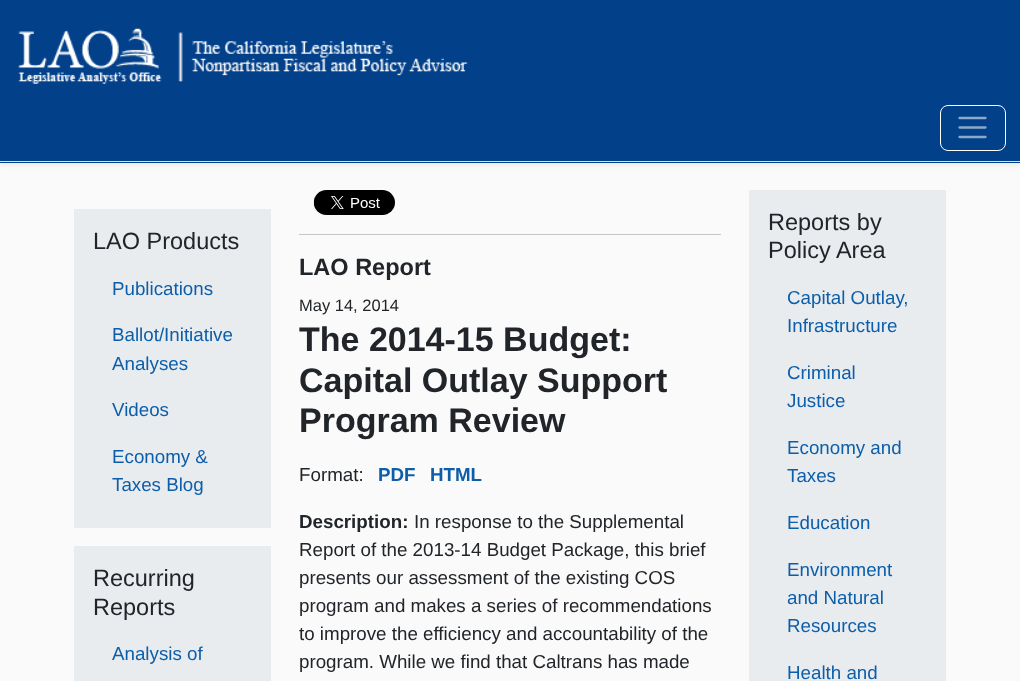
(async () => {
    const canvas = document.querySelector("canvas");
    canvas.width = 1020;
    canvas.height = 681;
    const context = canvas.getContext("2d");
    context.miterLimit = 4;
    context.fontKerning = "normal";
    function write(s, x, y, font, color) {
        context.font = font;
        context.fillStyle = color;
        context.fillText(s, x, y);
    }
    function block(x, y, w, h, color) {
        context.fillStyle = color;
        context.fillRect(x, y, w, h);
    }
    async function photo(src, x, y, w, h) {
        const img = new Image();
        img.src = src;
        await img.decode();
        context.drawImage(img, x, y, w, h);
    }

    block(0, 0, 1020, 681, "rgb(250, 250, 250)");
    context.fillStyle = "rgba(0, 0, 0, 0.07)";
    context.filter = "blur(2.5px)";
    context.beginPath();
    context.rect(0, 3, 1020, 162);
    context.fill();
    context.filter = "none";
    block(0, 0, 1020, 163, "rgb(2, 64, 138)");
    block(0, 161, 1020, 1, "rgb(222, 226, 230)");
    await photo("media/1.png", 18, 28, 450, 56);
    context.beginPath();
    context.roundRect(940.5, 105.5, 65, 45, 7.5);
    context.strokeStyle = "rgb(255, 255, 255)";
    context.stroke();
    context.beginPath();
    context.moveTo(959.5, 118);
    context.lineTo(985.5, 118);
    context.moveTo(959.5, 127.5);
    context.lineTo(985.5, 127.5);
    context.moveTo(959.5, 137);
    context.lineTo(985.5, 137);
    context.strokeStyle = "rgb(141, 169, 202)";
    context.lineWidth = 2.3;
    context.lineCap = "round";
    context.stroke();
    block(74, 209, 197, 319, "rgb(233, 236, 239)");
    write("LAO Products", 93, 249, "23.5px Liberation Sans", "rgb(33, 37, 41)");
    write("Publications", 112, 295, "18.75px Liberation Sans", "rgb(12, 94, 170)");
    write("Ballot/Initiative", 112, 341, "18.75px Liberation Sans", "rgb(12, 94, 170)");
    write("Analyses", 112, 370, "18.75px Liberation Sans", "rgb(12, 94, 170)");
    write("Videos", 112, 416, "18.75px Liberation Sans", "rgb(12, 94, 170)");
    write("Economy &", 112, 463, "18.75px Liberation Sans", "rgb(12, 94, 170)");
    write("Taxes Blog", 112, 491, "18.75px Liberation Sans", "rgb(12, 94, 170)");
    block(74, 546, 197, 135, "rgb(233, 236, 239)");
    write("Recurring", 93, 586, "23.5px Liberation Sans", "rgb(33, 37, 41)");
    write("Reports", 93, 615, "23.5px Liberation Sans", "rgb(33, 37, 41)");
    write("Analysis of", 112, 660, "18.75px Liberation Sans", "rgb(12, 94, 170)");
    await photo("media/2.png", 313, 190, 82, 25);
    block(299, 234, 422, 1, "rgb(196, 197, 198)");
    write("LAO Report", 299, 275, "bold 23.5px Liberation Sans", "rgb(33, 37, 41)");
    write("May 14, 2014", 299, 311, "16.5px Liberation Sans", "rgb(33, 37, 41)");
    write("The 2014-15 Budget:", 299, 351, "bold 34px Liberation Sans", "rgb(33, 37, 41)");
    write("Capital Outlay Support", 299, 392, "bold 34px Liberation Sans", "rgb(33, 37, 41)");
    write("Program Review", 299, 432, "bold 34px Liberation Sans", "rgb(33, 37, 41)");
    write("Format:", 299, 481, "18.75px Liberation Sans", "rgb(33, 37, 41)");
    write("PDF", 378, 481, "bold 18.75px Liberation Sans", "rgb(12, 94, 170)");
    write("HTML", 430, 481, "bold 18.75px Liberation Sans", "rgb(12, 94, 170)");
    write("Description:", 299, 528, "bold 18.75px Liberation Sans", "rgb(33, 37, 41)");
    write("In response to the Supplemental", 414, 528, "18.75px Liberation Sans", "rgb(33, 37, 41)");
    write("Report of the 2013-14 Budget Package, this brief", 299, 556, "18.75px Liberation Sans", "rgb(33, 37, 41)");
    write("presents our assessment of the existing COS", 299, 584, "18.75px Liberation Sans", "rgb(33, 37, 41)");
    write("program and makes a series of recommendations", 299, 612, "18.75px Liberation Sans", "rgb(33, 37, 41)");
    write("to improve the efficiency and accountability of the", 299, 640, "18.75px Liberation Sans", "rgb(33, 37, 41)");
    write("program. While we find that Caltrans has made", 299, 668, "18.75px Liberation Sans", "rgb(33, 37, 41)");
    block(749, 190, 197, 491, "rgb(233, 236, 239)");
    write("Reports by", 768, 230, "23.5px Liberation Sans", "rgb(33, 37, 41)");
    write("Policy Area", 768, 258, "23.5px Liberation Sans", "rgb(33, 37, 41)");
    write("Capital Outlay,", 787, 304, "18.75px Liberation Sans", "rgb(12, 94, 170)");
    write("Infrastructure", 787, 332, "18.75px Liberation Sans", "rgb(12, 94, 170)");
    write("Criminal", 787, 379, "18.75px Liberation Sans", "rgb(12, 94, 170)");
    write("Justice", 787, 407, "18.75px Liberation Sans", "rgb(12, 94, 170)");
    write("Economy and", 787, 454, "18.75px Liberation Sans", "rgb(12, 94, 170)");
    write("Taxes", 787, 482, "18.75px Liberation Sans", "rgb(12, 94, 170)");
    write("Education", 787, 529, "18.75px Liberation Sans", "rgb(12, 94, 170)");
    write("Environment", 787, 576, "18.75px Liberation Sans", "rgb(12, 94, 170)");
    write("and Natural", 787, 604, "18.75px Liberation Sans", "rgb(12, 94, 170)");
    write("Resources", 787, 632, "18.75px Liberation Sans", "rgb(12, 94, 170)");
    write("Health and", 787, 679, "18.75px Liberation Sans", "rgb(12, 94, 170)");
})();
